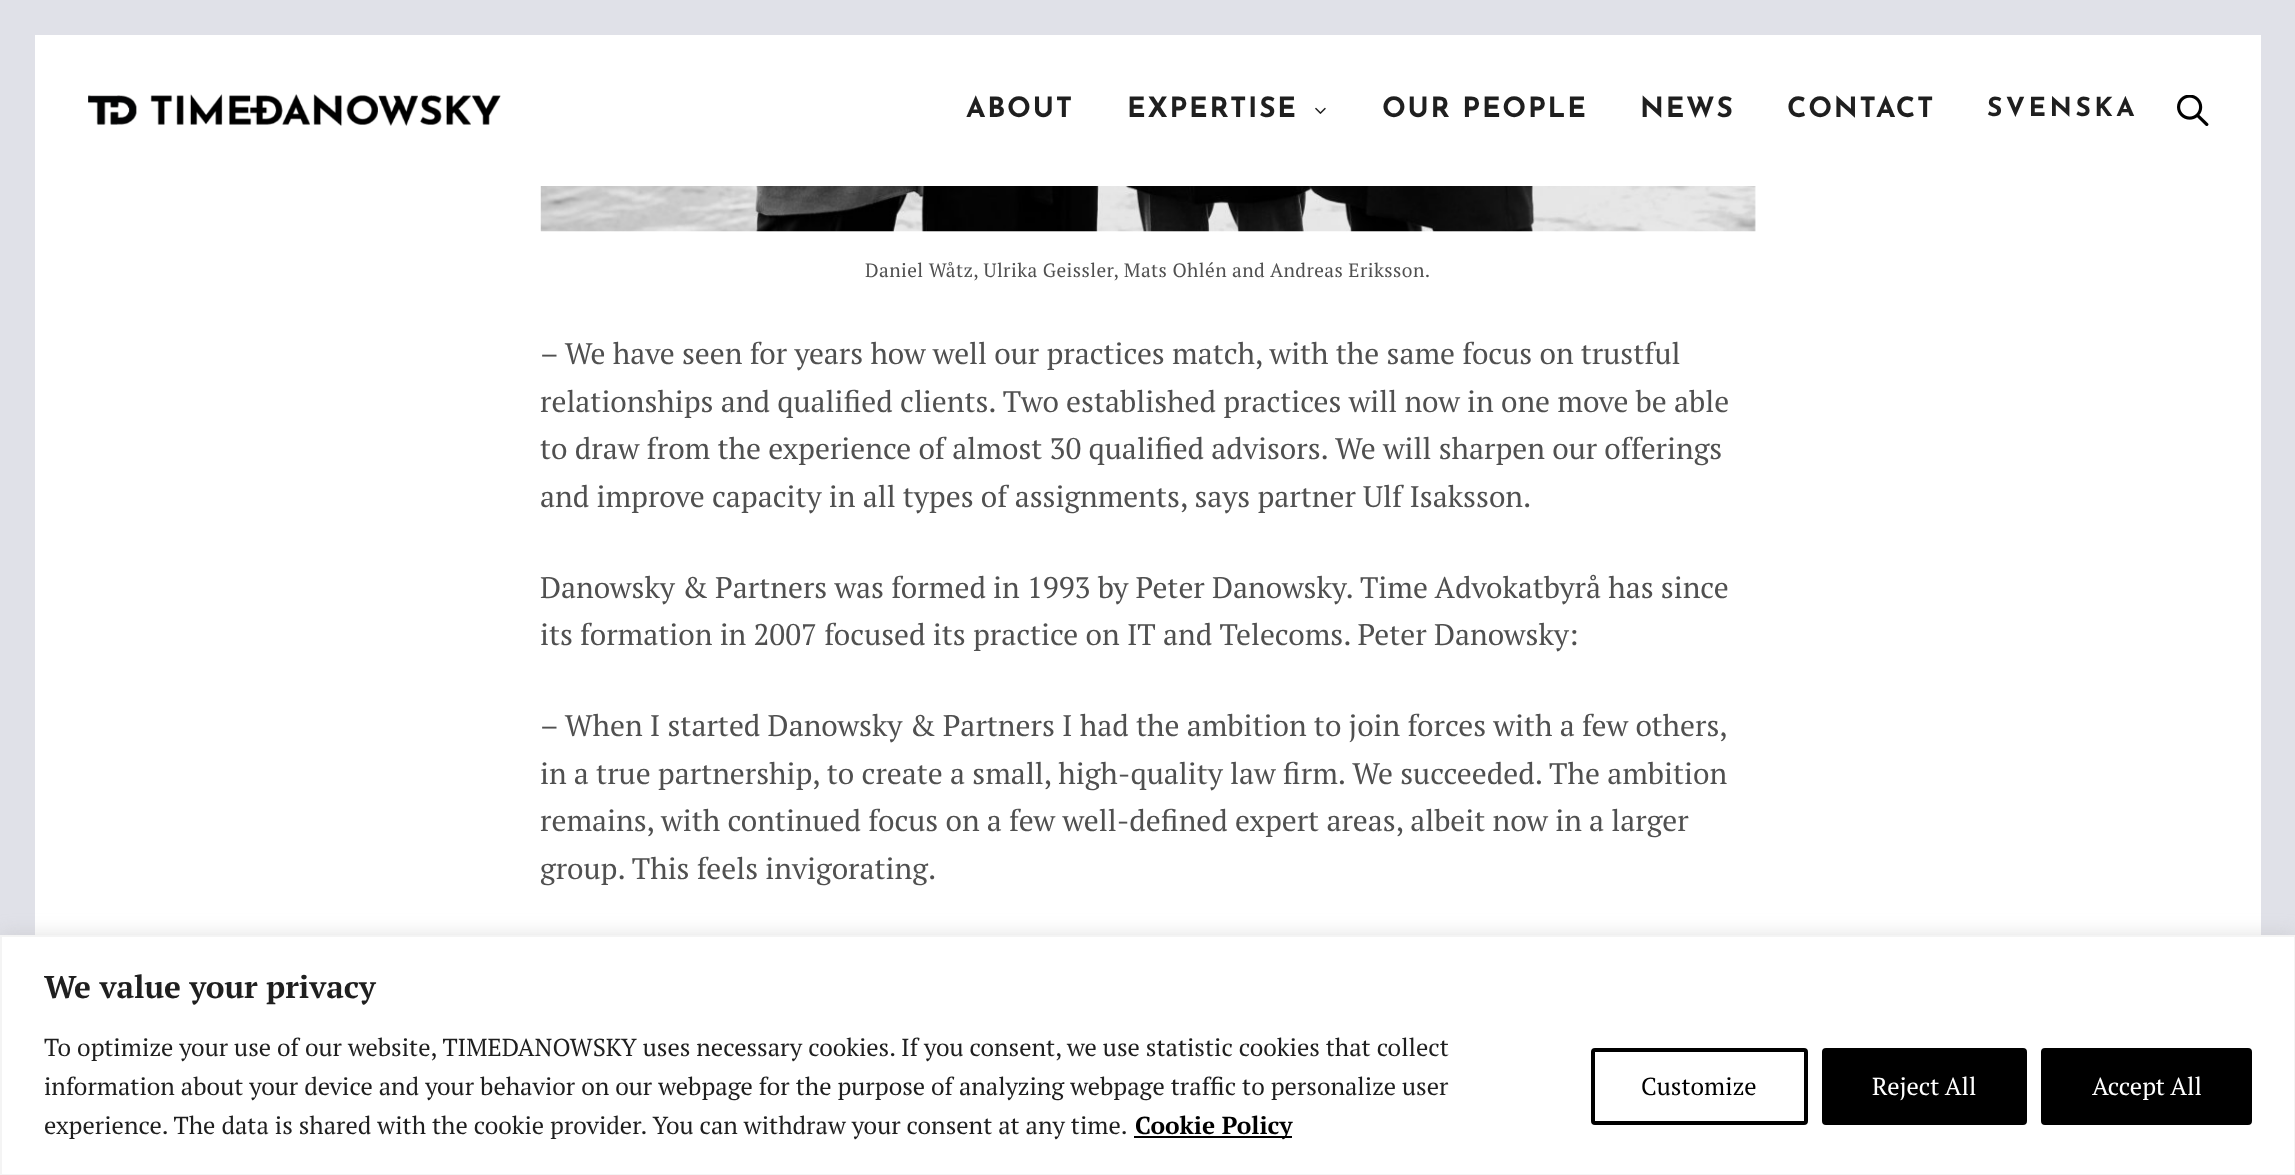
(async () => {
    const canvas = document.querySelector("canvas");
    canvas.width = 2295;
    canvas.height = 1175;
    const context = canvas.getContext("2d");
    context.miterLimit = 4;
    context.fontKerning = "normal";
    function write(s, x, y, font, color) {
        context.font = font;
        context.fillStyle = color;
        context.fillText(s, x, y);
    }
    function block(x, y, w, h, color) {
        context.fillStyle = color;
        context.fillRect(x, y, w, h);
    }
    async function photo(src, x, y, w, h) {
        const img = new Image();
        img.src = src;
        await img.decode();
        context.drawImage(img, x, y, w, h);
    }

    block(0, 0, 2295, 1175, "rgb(255, 255, 255)");
    await photo("media/1.png", 88, 94, 413, 32);
    await photo("media/2.png", 1315, 107, 11, 7);
    await photo("media/3.png", 2177, 95, 32, 31);
    await photo("media/4.png", 540, 186, 1216, 46);
    context.strokeStyle = "rgb(224, 225, 232)";
    context.lineWidth = 35;
    context.strokeRect(17.5, 17.5, 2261, 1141);
    context.letterSpacing = "1.75px";
    write("ABOUT", 966, 117, "bold 28px Josefin Sans", "rgb(31, 31, 31)");
    write("EXPERTISE", 1127, 117, "bold 28px Josefin Sans", "rgb(31, 31, 31)");
    write("OUR PEOPLE", 1382, 117, "bold 28px Josefin Sans", "rgb(31, 31, 31)");
    write("NEWS", 1640, 117, "bold 28px Josefin Sans", "rgb(31, 31, 31)");
    write("CONTACT", 1787, 117, "bold 28px Josefin Sans", "rgb(31, 31, 31)");
    context.letterSpacing = "3.5px";
    write("SVENSKA", 1987, 116, "bold 26.25px Josefin Sans", "rgb(31, 31, 31)");
    context.letterSpacing = "0.42px";
    write("Daniel Wåtz, Ulrika Geissler, Mats Ohlén and Andreas Eriksson.", 865, 277, "19.25px PT Serif", "rgb(80, 80, 80)");
    context.letterSpacing = "0px";
    write("– We have seen for years how well our practices match, with the same focus on trustful", 540, 364, "29.75px PT Serif", "rgb(80, 80, 80)");
    write("relationships and qualified clients. Two established practices will now in one move be able", 540, 412, "29.75px PT Serif", "rgb(80, 80, 80)");
    write("to draw from the experience of almost 30 qualified advisors. We will sharpen our offerings", 540, 459, "29.75px PT Serif", "rgb(80, 80, 80)");
    write("and improve capacity in all types of assignments, says partner Ulf Isaksson.", 540, 507, "29.75px PT Serif", "rgb(80, 80, 80)");
    write("Danowsky & Partners was formed in 1993 by Peter Danowsky. Time Advokatbyrå has since", 540, 598, "29.75px PT Serif", "rgb(80, 80, 80)");
    write("its formation in 2007 focused its practice on IT and Telecoms. Peter Danowsky:", 540, 645, "29.75px PT Serif", "rgb(80, 80, 80)");
    write("– When I started Danowsky & Partners I had the ambition to join forces with a few others,", 540, 736, "29.75px PT Serif", "rgb(80, 80, 80)");
    write("in a true partnership, to create a small, high-quality law firm. We succeeded. The ambition", 540, 784, "29.75px PT Serif", "rgb(80, 80, 80)");
    write("remains, with continued focus on a few well-defined expert areas, albeit now in a larger", 540, 831, "29.75px PT Serif", "rgb(80, 80, 80)");
    write("group. This feels invigorating.", 540, 879, "29.75px PT Serif", "rgb(80, 80, 80)");
    context.fillStyle = "rgba(172, 171, 171, 0.3)";
    context.filter = "blur(9px)";
    context.beginPath();
    context.rect(0, 933, 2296, 241);
    context.fill();
    context.filter = "none";
    context.fillStyle = "rgb(255, 255, 255)";
    context.beginPath();
    context.rect(1, 936, 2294, 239);
    context.fill();
    context.strokeStyle = "rgb(244, 244, 244)";
    context.lineWidth = 2;
    context.stroke();
    write("We value your privacy", 44, 998, "bold 31.5px PT Serif", "rgb(31, 31, 31)");
    write("To optimize your use of our website, TIMEDANOWSKY uses necessary cookies. If you consent, we use statistic cookies that collect", 44, 1056, "24.5px PT Serif", "rgb(31, 31, 31)");
    write("information about your device and your behavior on our webpage for the purpose of analyzing webpage traffic to personalize user", 44, 1095, "24.5px PT Serif", "rgb(31, 31, 31)");
    write("experience. The data is shared with the cookie provider. You can withdraw your consent at any time.", 44, 1134, "24.5px PT Serif", "rgb(31, 31, 31)");
    block(1134, 1136, 158, 2, "rgb(0, 0, 0)");
    write("Cookie Policy", 1135, 1134, "bold 24.5px PT Serif", "rgb(0, 0, 0)");
    context.beginPath();
    context.roundRect(1593, 1050, 213, 73, 2);
    context.strokeStyle = "rgb(0, 0, 0)";
    context.lineWidth = 4;
    context.stroke();
    write("Customize", 1641, 1095, "24.5px PT Serif", "rgb(0, 0, 0)");
    context.beginPath();
    context.roundRect(1824, 1050, 201, 73, 2);
    context.fill();
    context.stroke();
    write("Reject All", 1872, 1095, "24.5px PT Serif", "rgb(255, 255, 255)");
    context.fillStyle = "rgb(0, 0, 0)";
    context.beginPath();
    context.roundRect(2043, 1050, 207, 73, 2);
    context.fill();
    context.stroke();
    write("Accept All", 2092, 1095, "24.5px PT Serif", "rgb(255, 255, 255)");
})();
